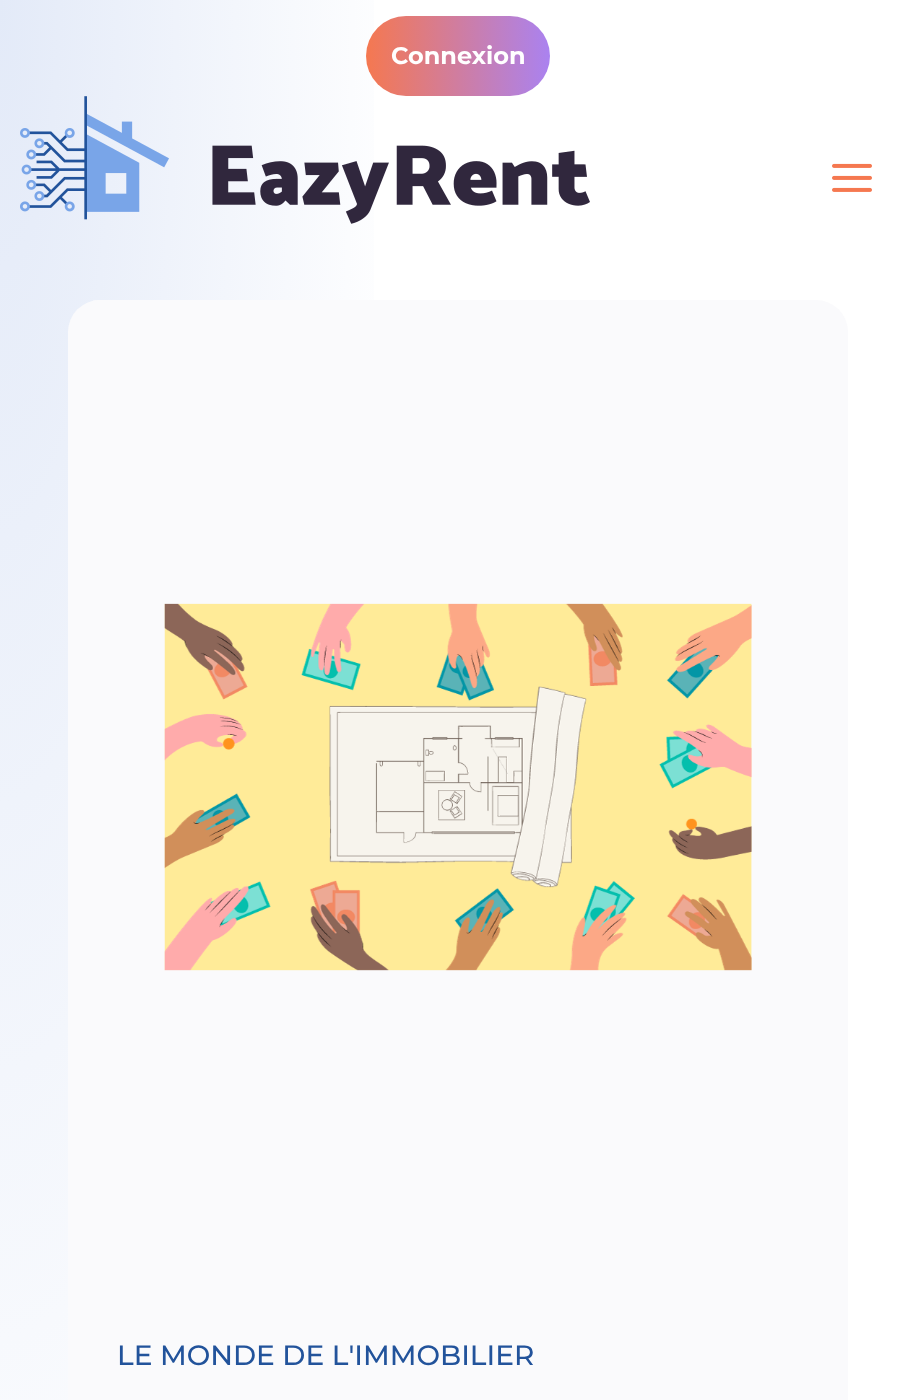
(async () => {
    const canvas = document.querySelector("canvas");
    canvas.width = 915;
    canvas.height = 1400;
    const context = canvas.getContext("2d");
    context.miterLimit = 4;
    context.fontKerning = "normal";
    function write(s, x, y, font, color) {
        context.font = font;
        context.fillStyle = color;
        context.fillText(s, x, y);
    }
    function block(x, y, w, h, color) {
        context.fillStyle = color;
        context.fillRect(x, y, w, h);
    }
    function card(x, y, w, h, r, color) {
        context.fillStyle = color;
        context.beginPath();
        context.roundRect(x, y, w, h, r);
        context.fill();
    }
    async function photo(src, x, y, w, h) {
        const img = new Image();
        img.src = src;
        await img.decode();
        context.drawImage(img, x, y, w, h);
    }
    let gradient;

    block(0, 0, 915, 1400, "rgb(255, 255, 255)");
    gradient = context.createRadialGradient(0, 0, 0, 0, 0, 411);
    gradient.addColorStop(0, "rgb(227, 234, 248)");
    gradient.addColorStop(1, "rgb(255, 255, 255)");
    context.fillStyle = gradient;
    context.beginPath();
    context.rect(0, 0, 374, 1400);
    context.save();
    context.clip();
    context.scale(1, 1875 / 411);
    context.fillRect(0, 0, 915, 307);
    context.restore();
    gradient = context.createLinearGradient(366, 56, 550, 56);
    gradient.addColorStop(0, "rgb(245, 120, 80)");
    gradient.addColorStop(1, "rgb(170, 130, 240)");
    context.fillStyle = gradient;
    context.beginPath();
    context.roundRect(366, 16, 184, 80, 40);
    context.fill();
    write("Connexion", 391, 64, "100 24px 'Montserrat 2'", "rgb(255, 255, 255)");
    await photo("media/1.png", 20, 96, 570, 128);
    await photo("media/2.png", 832, 163, 40, 29);
    card(68, 300, 780, 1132, 32, "rgb(250, 250, 252)");
    await photo("media/3.png", 93, 300, 659, 671);
    write("LE MONDE DE L'IMMOBILIER", 117, 1365, "100 28px Montserrat", "rgb(34, 83, 155)");
})();
